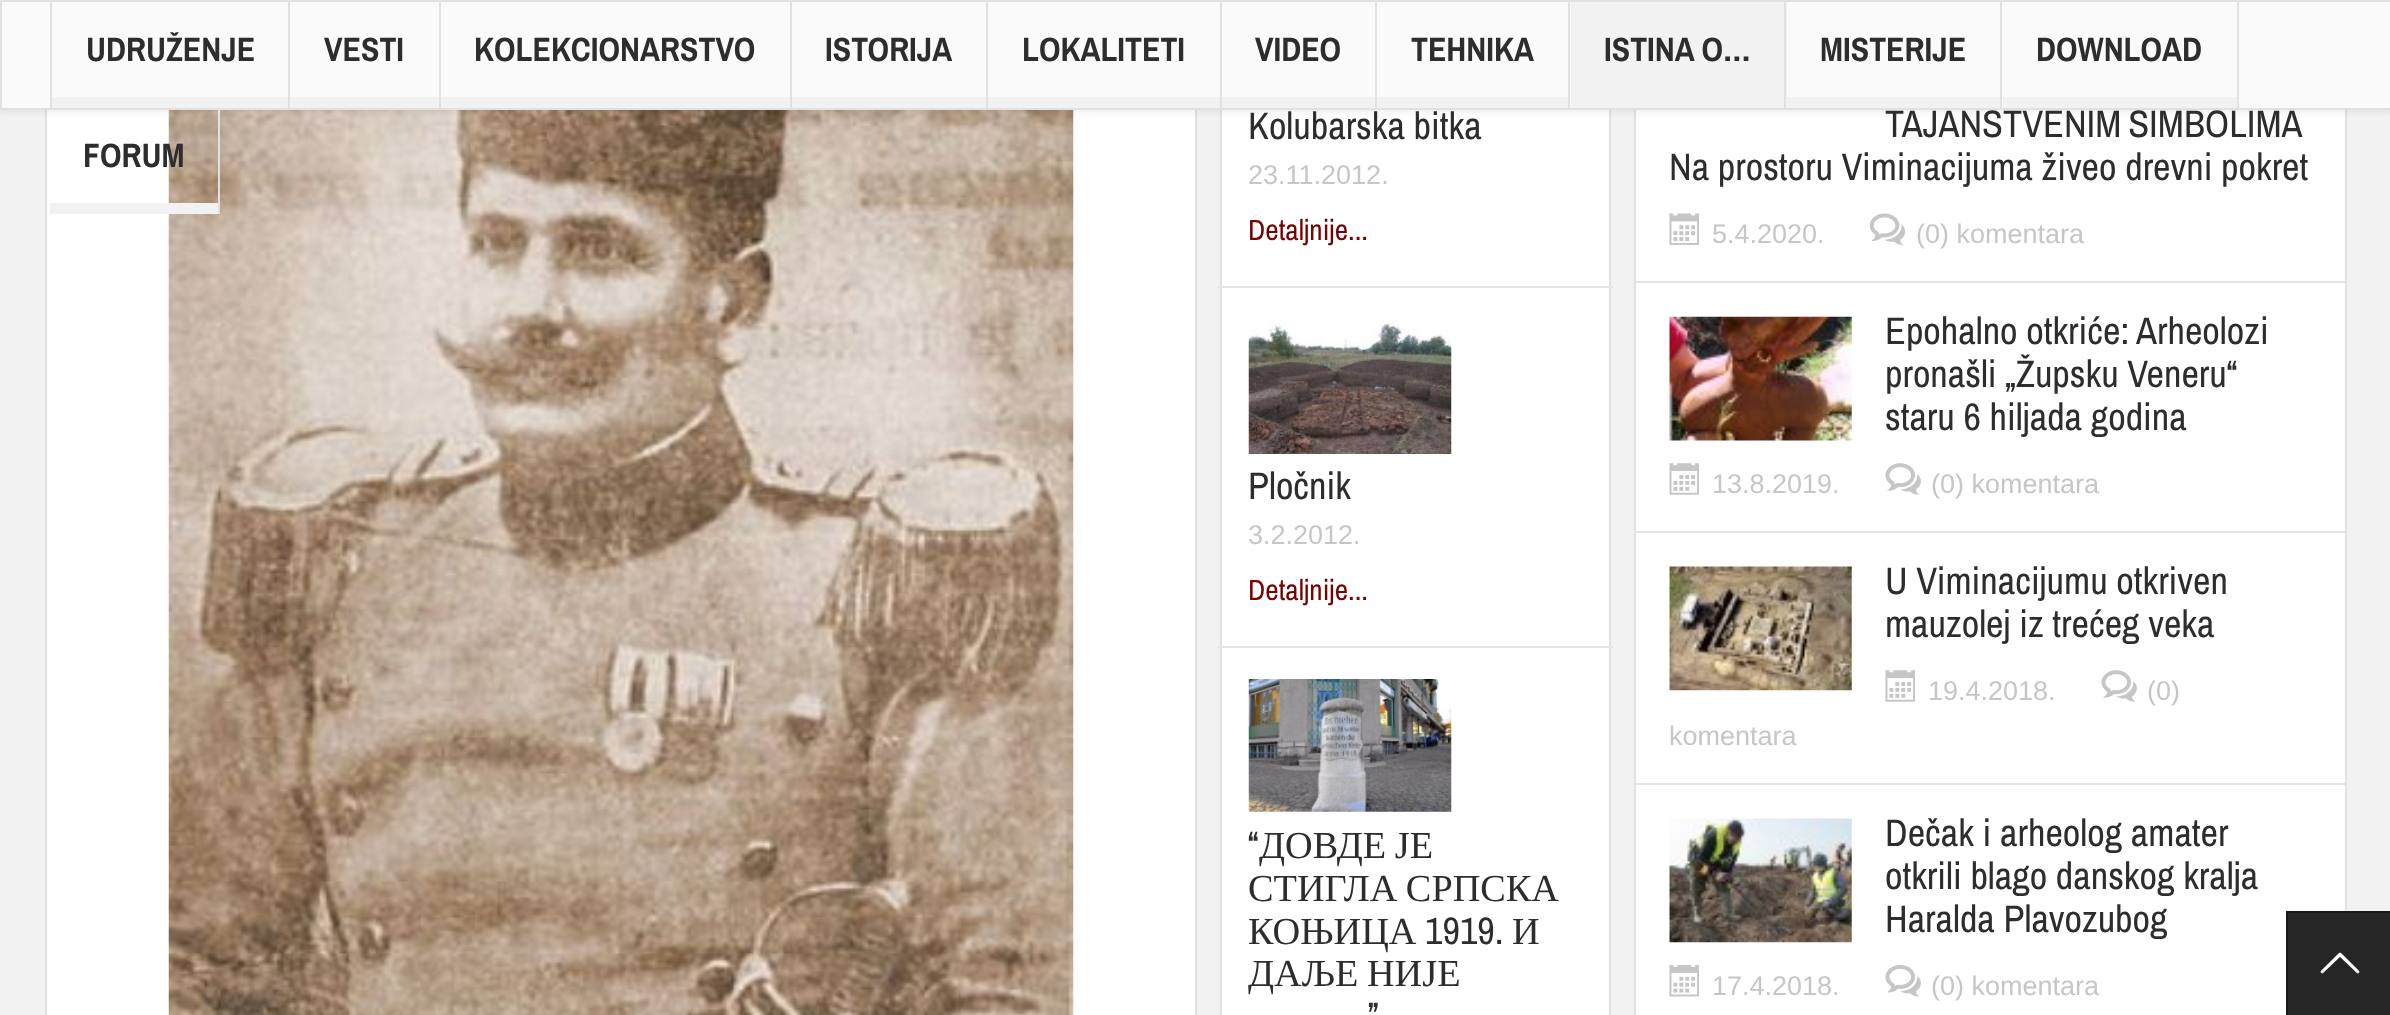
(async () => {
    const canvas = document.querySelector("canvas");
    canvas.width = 2390;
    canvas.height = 1015;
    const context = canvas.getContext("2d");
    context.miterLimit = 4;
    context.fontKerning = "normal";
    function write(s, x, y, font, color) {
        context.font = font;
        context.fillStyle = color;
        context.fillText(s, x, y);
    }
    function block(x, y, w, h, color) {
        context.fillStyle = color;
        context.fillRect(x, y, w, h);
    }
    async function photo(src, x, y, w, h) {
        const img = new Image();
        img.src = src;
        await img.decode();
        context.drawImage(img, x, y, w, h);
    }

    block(0, 0, 2390, 1015, "rgb(242, 242, 242)");
    block(47, 110, 1148, 905, "rgb(255, 255, 255)");
    context.strokeStyle = "rgb(225, 225, 225)";
    context.lineWidth = 2;
    context.strokeRect(46, -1, 1150, 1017);
    await photo("media/1.png", 168, 110, 906, 905);
    block(1222, 110, 387, 905, "rgb(255, 255, 255)");
    context.strokeRect(1221, -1, 389, 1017);
    block(1636, 110, 709, 905, "rgb(255, 255, 255)");
    context.strokeRect(1635, -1, 711, 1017);
    context.fillStyle = "rgba(0, 0, 0, 0.1)";
    context.filter = "blur(4.5px)";
    context.beginPath();
    context.rect(0, 0, 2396, 110);
    context.fill();
    context.filter = "none";
    context.fillStyle = "rgb(250, 250, 250)";
    context.beginPath();
    context.rect(1, 1, 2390, 108);
    context.fill();
    context.stroke();
    block(288, 2, 2, 106, "rgb(225, 225, 225)");
    block(50, 2, 2, 106, "rgb(225, 225, 225)");
    write("UDRUŽENJE", 86, 61, "bold 33.75px Archivo Narrow", "rgb(45, 45, 45)");
    block(52, 97, 236, 11, "rgb(242, 242, 242)");
    block(439, 2, 2, 106, "rgb(225, 225, 225)");
    write("VESTI", 324, 61, "bold 33.75px Archivo Narrow", "rgb(45, 45, 45)");
    block(290, 97, 149, 11, "rgb(242, 242, 242)");
    block(790, 2, 2, 106, "rgb(225, 225, 225)");
    write("KOLEKCIONARSTVO", 474, 61, "bold 33.75px Archivo Narrow", "rgb(45, 45, 45)");
    block(441, 97, 349, 11, "rgb(242, 242, 242)");
    block(986, 2, 2, 106, "rgb(225, 225, 225)");
    write("ISTORIJA", 825, 61, "bold 33.75px Archivo Narrow", "rgb(45, 45, 45)");
    block(792, 97, 194, 11, "rgb(242, 242, 242)");
    block(1220, 2, 2, 106, "rgb(225, 225, 225)");
    write("LOKALITETI", 1022, 61, "bold 33.75px Archivo Narrow", "rgb(45, 45, 45)");
    block(988, 97, 232, 11, "rgb(242, 242, 242)");
    block(1375, 2, 2, 106, "rgb(225, 225, 225)");
    write("VIDEO", 1255, 61, "bold 33.75px Archivo Narrow", "rgb(45, 45, 45)");
    block(1222, 97, 153, 11, "rgb(242, 242, 242)");
    block(1568, 2, 2, 106, "rgb(225, 225, 225)");
    write("TEHNIKA", 1411, 61, "bold 33.75px Archivo Narrow", "rgb(45, 45, 45)");
    block(1377, 97, 191, 11, "rgb(242, 242, 242)");
    block(1571, 2, 216, 106, "rgb(242, 242, 242)");
    block(1784, 2, 2, 106, "rgb(225, 225, 225)");
    write("ISTINA O…", 1604, 61, "bold 33.75px Archivo Narrow", "rgb(45, 45, 45)");
    block(2000, 2, 2, 106, "rgb(225, 225, 225)");
    write("MISTERIJE", 1820, 61, "bold 33.75px Archivo Narrow", "rgb(45, 45, 45)");
    block(1787, 97, 213, 11, "rgb(242, 242, 242)");
    block(2237, 2, 2, 106, "rgb(225, 225, 225)");
    write("DOWNLOAD", 2036, 61, "bold 33.75px Archivo Narrow", "rgb(45, 45, 45)");
    block(2003, 97, 234, 11, "rgb(242, 242, 242)");
    block(218, 108, 2, 106, "rgb(225, 225, 225)");
    write("FORUM", 83, 167, "bold 33.75px Archivo Narrow", "rgb(45, 45, 45)");
    block(50, 203, 168, 11, "rgb(242, 242, 242)");
    block(1217, 286, 396, 2, "rgb(229, 229, 229)");
    write("Kolubarska bitka", 1248, 139, "38.25px Archivo Narrow", "rgb(45, 45, 45)");
    write("23.11.2012.", 1248, 184, "27px Liberation Sans", "rgb(198, 198, 198)");
    write("Detaljnije...", 1248, 240, "29.25px Archivo Narrow", "rgb(117, 1, 1)");
    block(1217, 646, 396, 2, "rgb(229, 229, 229)");
    await photo("media/2.png", 1248, 319, 204, 135);
    write("Pločnik", 1248, 499, "38.25px Archivo Narrow", "rgb(45, 45, 45)");
    write("3.2.2012.", 1248, 544, "27px Liberation Sans", "rgb(198, 198, 198)");
    write("Detaljnije...", 1248, 600, "29.25px Archivo Narrow", "rgb(117, 1, 1)");
    await photo("media/3.png", 1248, 679, 204, 133);
    write("“", 1248, 858, "38.25px Archivo Narrow", "rgb(45, 45, 45)");
    context.wordSpacing = "-1px";
    write("ДОВДЕ ЈЕ", 1259, 858, "38.25px Liberation Serif", "rgb(45, 45, 45)");
    write("СТИГЛА СРПСКА", 1248, 901, "38.25px Liberation Serif", "rgb(45, 45, 45)");
    context.wordSpacing = "0px";
    write("КОЊИЦА", 1248, 944, "38.25px Liberation Serif", "rgb(45, 45, 45)");
    write("1919.", 1425, 944, "38.25px Archivo Narrow", "rgb(45, 45, 45)");
    write("И", 1512, 944, "38.25px Liberation Serif", "rgb(45, 45, 45)");
    context.wordSpacing = "-1px";
    write("ДАЉЕ НИЈЕ", 1248, 986, "38.25px Liberation Serif", "rgb(45, 45, 45)");
    context.wordSpacing = "0px";
    write("”", 1368, 1029, "38.25px Archivo Narrow", "rgb(45, 45, 45)");
    block(1636, 281, 709, 2, "rgb(228, 228, 228)");
    context.wordSpacing = "-2px";
    write("TAJANSTVENIM SIMBOLIMA", 1885, 137, "38.25px Archivo Narrow", "rgb(45, 45, 45)");
    context.wordSpacing = "0px";
    write("Na prostoru Viminacijuma živeo drevni pokret", 1669, 180, "38.25px Archivo Narrow", "rgb(45, 45, 45)");
    await photo("media/4.png", 1669, 213, 30, 32);
    write("5.4.2020.", 1712, 243, "27px Liberation Sans", "rgb(198, 198, 198)");
    await photo("media/5.png", 1869, 213, 37, 32);
    write("(0) komentara", 1916, 243, "27px Liberation Sans", "rgb(198, 198, 198)");
    block(1636, 531, 709, 2, "rgb(228, 228, 228)");
    await photo("media/6.png", 1669, 316, 183, 125);
    write("Epohalno otkriće: Arheolozi", 1885, 344, "38.25px Archivo Narrow", "rgb(45, 45, 45)");
    write("pronašli „Župsku Veneru“", 1885, 387, "38.25px Archivo Narrow", "rgb(45, 45, 45)");
    write("staru 6 hiljada godina", 1885, 430, "38.25px Archivo Narrow", "rgb(45, 45, 45)");
    await photo("media/7.png", 1669, 463, 30, 32);
    write("13.8.2019.", 1712, 493, "27px Liberation Sans", "rgb(198, 198, 198)");
    await photo("media/8.png", 1885, 463, 36, 32);
    write("(0) komentara", 1931, 493, "27px Liberation Sans", "rgb(198, 198, 198)");
    block(1636, 783, 709, 2, "rgb(228, 228, 228)");
    await photo("media/9.png", 1669, 566, 183, 125);
    write("U Viminacijumu otkriven", 1885, 594, "38.25px Archivo Narrow", "rgb(45, 45, 45)");
    write("mauzolej iz trećeg veka", 1885, 637, "38.25px Archivo Narrow", "rgb(45, 45, 45)");
    await photo("media/8.png", 2101, 670, 36, 32);
    write("(0)", 2147, 700, "27px Liberation Sans", "rgb(198, 198, 198)");
    write("komentara", 1669, 745, "27px Liberation Sans", "rgb(198, 198, 198)");
    await photo("media/7.png", 1885, 670, 30, 32);
    write("19.4.2018.", 1928, 700, "27px Liberation Sans", "rgb(198, 198, 198)");
    await photo("media/10.png", 1669, 818, 183, 125);
    write("Dečak i arheolog amater", 1885, 846, "38.25px Archivo Narrow", "rgb(45, 45, 45)");
    write("otkrili blago danskog kralja", 1885, 889, "38.25px Archivo Narrow", "rgb(45, 45, 45)");
    write("Haralda Plavozubog", 1885, 932, "38.25px Archivo Narrow", "rgb(45, 45, 45)");
    await photo("media/11.png", 1669, 965, 30, 32);
    write("17.4.2018.", 1712, 995, "27px Liberation Sans", "rgb(198, 198, 198)");
    await photo("media/12.png", 1885, 965, 36, 32);
    write("(0) komentara", 1931, 995, "27px Liberation Sans", "rgb(198, 198, 198)");
    context.fillStyle = "rgb(38, 38, 38)";
    context.beginPath();
    context.rect(2287, 912, 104, 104);
    context.fill();
    context.strokeStyle = "rgb(26, 26, 26)";
    context.stroke();
    await photo("media/13.png", 2320, 952, 40, 22);
})();
